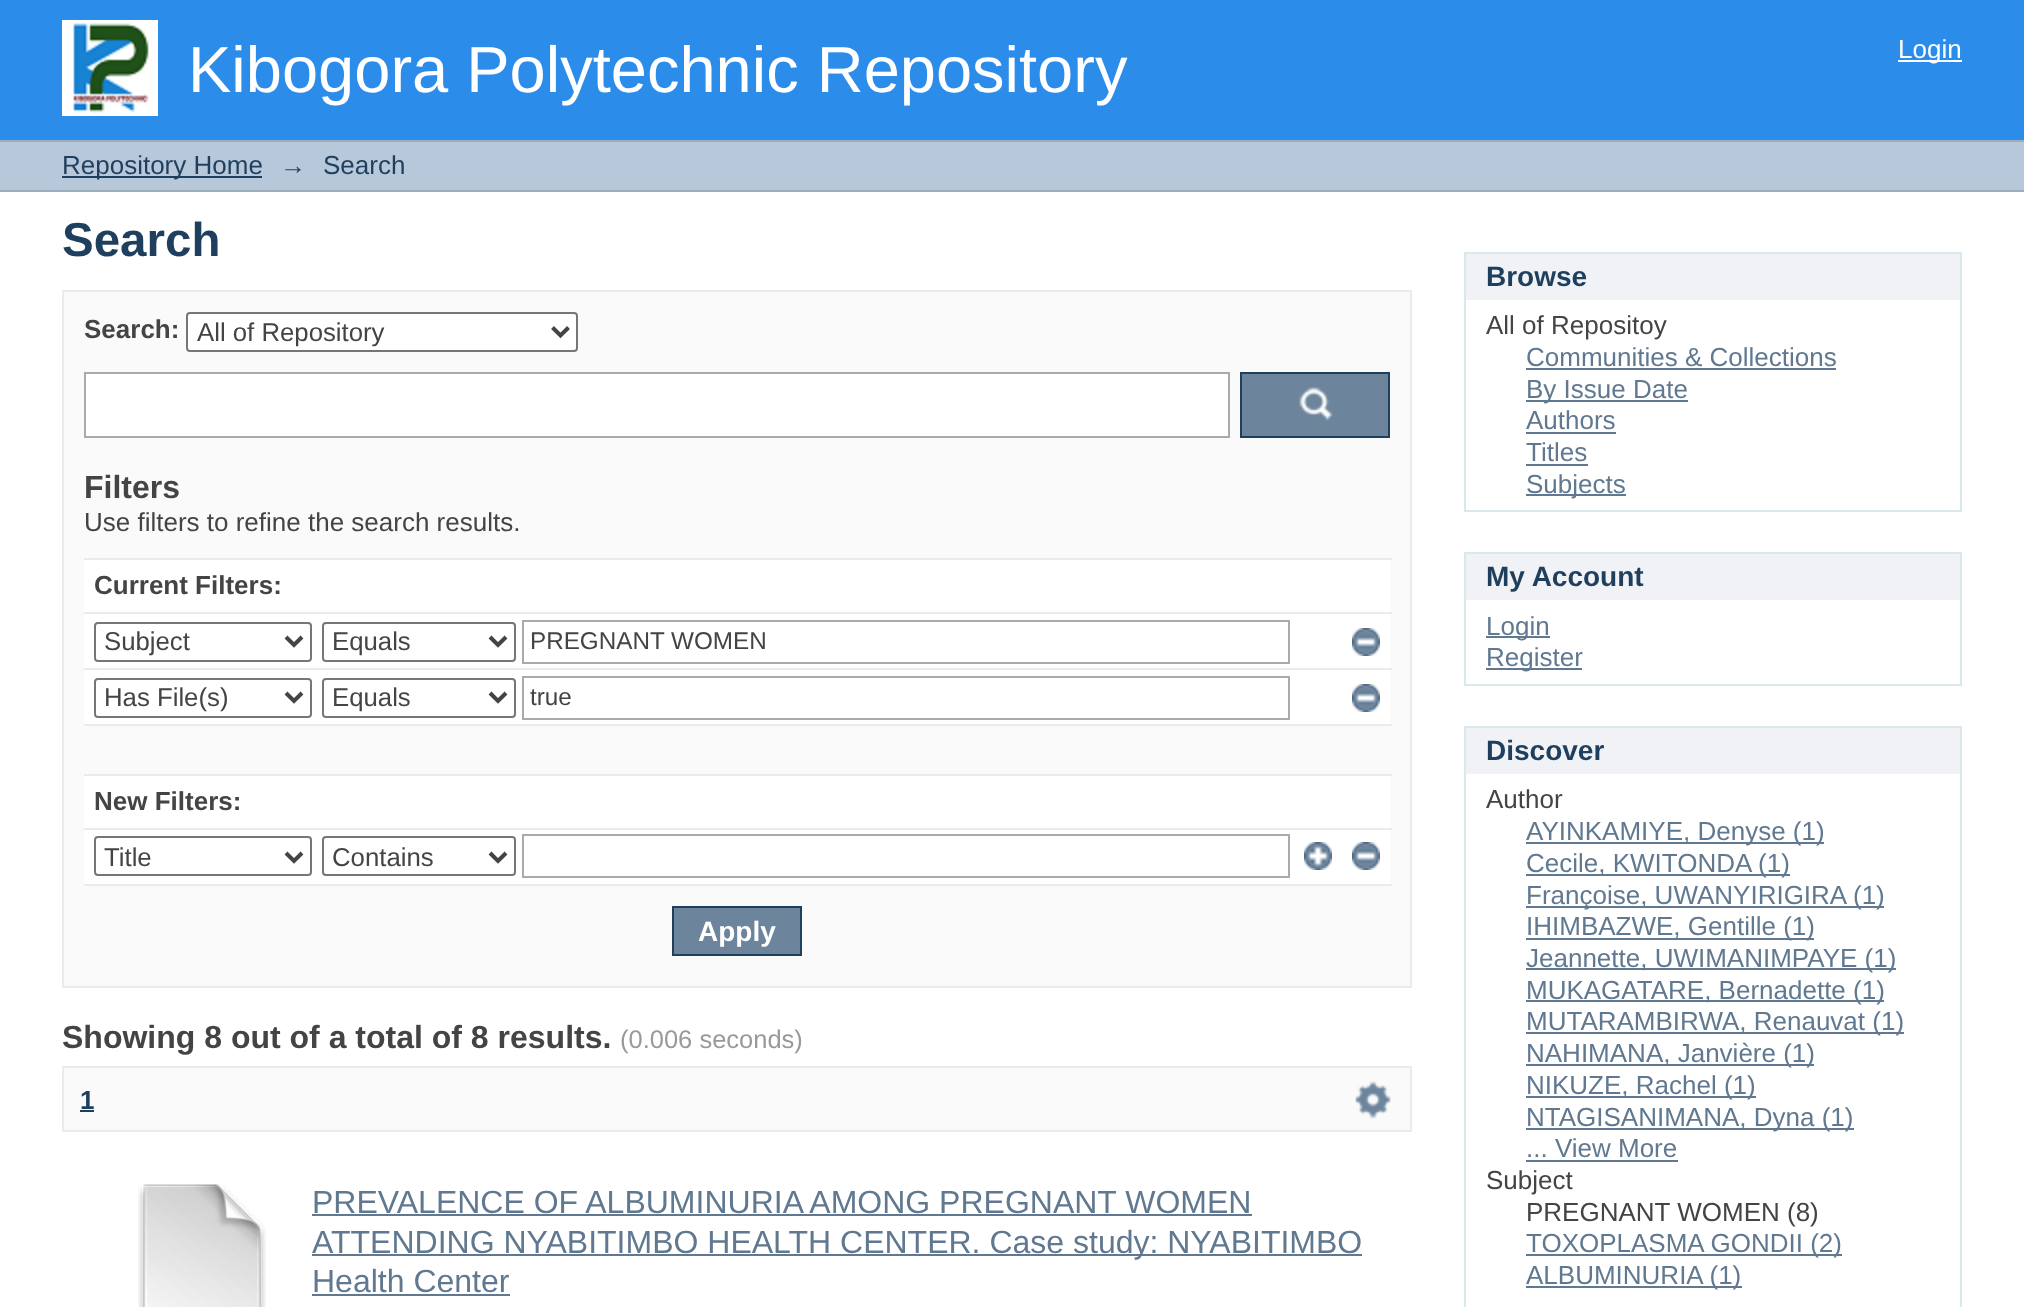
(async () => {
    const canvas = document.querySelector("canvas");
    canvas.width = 2024;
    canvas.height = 1307;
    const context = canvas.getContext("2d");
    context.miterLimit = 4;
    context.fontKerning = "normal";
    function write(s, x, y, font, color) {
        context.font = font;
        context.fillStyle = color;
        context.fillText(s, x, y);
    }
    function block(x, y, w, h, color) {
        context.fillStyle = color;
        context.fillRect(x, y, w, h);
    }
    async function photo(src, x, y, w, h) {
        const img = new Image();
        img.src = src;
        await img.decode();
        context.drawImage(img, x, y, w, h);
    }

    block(0, 0, 2024, 1307, "rgb(255, 255, 255)");
    block(0, 0, 2024, 140, "rgb(44, 140, 234)");
    await photo("media/1.png", 62, 20, 96, 96);
    write("Kibogora Polytechnic Repository", 188, 92, "65px Liberation Sans", "rgb(255, 255, 255)");
    block(1898, 60, 64, 2, "rgb(255, 255, 255)");
    write("Login", 1898, 58, "26px Liberation Sans", "rgb(255, 255, 255)");
    block(0, 142, 2024, 48, "rgb(182, 200, 217)");
    block(0, 140, 2024, 2, "rgb(156, 172, 186)");
    block(0, 190, 2024, 2, "rgb(156, 172, 186)");
    block(62, 176, 200, 2, "rgb(31, 63, 94)");
    write("Repository Home", 62, 174, "26px Liberation Sans", "rgb(31, 63, 94)");
    write("→", 280, 174, "26px Liberation Sans", "rgb(31, 63, 94)");
    write("Search", 323, 174, "26px Liberation Sans", "rgb(31, 63, 94)");
    write("Search", 62, 256, "bold 47.5px Liberation Sans", "rgb(31, 63, 94)");
    context.fillStyle = "rgb(250, 250, 250)";
    context.beginPath();
    context.rect(63, 291, 1348, 696);
    context.fill();
    context.strokeStyle = "rgb(235, 235, 235)";
    context.lineWidth = 2;
    context.stroke();
    write("Search:", 84, 338, "bold 26px Liberation Sans", "rgb(68, 68, 68)");
    context.fillStyle = "rgb(255, 255, 255)";
    context.beginPath();
    context.roundRect(187, 313, 390, 38, 3);
    context.fill();
    context.strokeStyle = "rgb(118, 118, 118)";
    context.stroke();
    context.beginPath();
    context.moveTo(552.5, 327.5);
    context.lineTo(560.5, 335.5);
    context.lineTo(568.5, 327.5);
    context.strokeStyle = "rgb(68, 68, 68)";
    context.lineWidth = 4;
    context.stroke();
    write("All of Repository", 197, 341, "25.75px Liberation Sans", "rgb(68, 68, 68)");
    context.fillStyle = "rgb(255, 255, 255)";
    context.beginPath();
    context.rect(85, 373, 1144, 64);
    context.fill();
    context.strokeStyle = "rgb(170, 170, 170)";
    context.lineWidth = 2;
    context.stroke();
    block(1242, 374, 146, 62, "rgb(109, 133, 156)");
    await photo("media/2.png", 1299, 387, 34, 34);
    context.strokeStyle = "rgb(31, 63, 94)";
    context.strokeRect(1241, 373, 148, 64);
    write("Filters", 84, 498, "bold 32px Liberation Sans", "rgb(68, 68, 68)");
    write("Use filters to refine the search results.", 84, 531, "26px Liberation Sans", "rgb(68, 68, 68)");
    block(84, 560, 1306, 324, "rgb(255, 255, 255)");
    block(84, 558, 1308, 2, "rgb(235, 235, 235)");
    write("Current Filters:", 94, 594, "bold 26px Liberation Sans", "rgb(68, 68, 68)");
    block(84, 612, 1308, 2, "rgb(235, 235, 235)");
    context.beginPath();
    context.roundRect(95, 623, 216, 38, 3);
    context.strokeStyle = "rgb(118, 118, 118)";
    context.stroke();
    context.beginPath();
    context.moveTo(286, 637);
    context.lineTo(294, 645);
    context.lineTo(302, 637);
    context.strokeStyle = "rgb(68, 68, 68)";
    context.lineWidth = 4;
    context.stroke();
    write("Subject", 104, 650, "25.75px Liberation Sans", "rgb(68, 68, 68)");
    context.beginPath();
    context.roundRect(323, 623, 192, 38, 3);
    context.strokeStyle = "rgb(118, 118, 118)";
    context.lineWidth = 2;
    context.stroke();
    context.beginPath();
    context.moveTo(490, 637);
    context.lineTo(498, 645);
    context.lineTo(506, 637);
    context.strokeStyle = "rgb(68, 68, 68)";
    context.lineWidth = 4;
    context.stroke();
    write("Equals", 332, 650, "25.75px Liberation Sans", "rgb(68, 68, 68)");
    context.strokeStyle = "rgb(170, 170, 170)";
    context.lineWidth = 2;
    context.strokeRect(523, 621, 766, 42);
    write("PREGNANT WOMEN", 530, 649, "24.25px Liberation Sans", "rgb(68, 68, 68)");
    await photo("media/3.png", 1352, 628, 28, 28);
    block(84, 668, 1308, 2, "rgb(235, 235, 235)");
    context.beginPath();
    context.roundRect(95, 679, 216, 38, 3);
    context.strokeStyle = "rgb(118, 118, 118)";
    context.stroke();
    context.beginPath();
    context.moveTo(286, 693);
    context.lineTo(294, 701);
    context.lineTo(302, 693);
    context.strokeStyle = "rgb(68, 68, 68)";
    context.lineWidth = 4;
    context.stroke();
    write("Has File(s)", 104, 706, "25.75px Liberation Sans", "rgb(68, 68, 68)");
    context.beginPath();
    context.roundRect(323, 679, 192, 38, 3);
    context.strokeStyle = "rgb(118, 118, 118)";
    context.lineWidth = 2;
    context.stroke();
    context.beginPath();
    context.moveTo(490, 693);
    context.lineTo(498, 701);
    context.lineTo(506, 693);
    context.strokeStyle = "rgb(68, 68, 68)";
    context.lineWidth = 4;
    context.stroke();
    write("Equals", 332, 706, "25.75px Liberation Sans", "rgb(68, 68, 68)");
    context.strokeStyle = "rgb(170, 170, 170)";
    context.lineWidth = 2;
    context.strokeRect(523, 677, 766, 42);
    write("true", 530, 705, "24.25px Liberation Sans", "rgb(68, 68, 68)");
    await photo("media/3.png", 1352, 684, 28, 28);
    block(84, 726, 1306, 48, "rgb(250, 250, 250)");
    block(84, 724, 1308, 2, "rgb(235, 235, 235)");
    block(84, 774, 1308, 2, "rgb(235, 235, 235)");
    write("New Filters:", 94, 810, "bold 26px Liberation Sans", "rgb(68, 68, 68)");
    block(84, 828, 1308, 2, "rgb(235, 235, 235)");
    context.beginPath();
    context.roundRect(95, 837, 216, 38, 3);
    context.strokeStyle = "rgb(118, 118, 118)";
    context.stroke();
    context.beginPath();
    context.moveTo(286, 853);
    context.lineTo(294, 861);
    context.lineTo(302, 853);
    context.strokeStyle = "rgb(68, 68, 68)";
    context.lineWidth = 4;
    context.stroke();
    write("Title", 104, 866, "25.75px Liberation Sans", "rgb(68, 68, 68)");
    context.beginPath();
    context.roundRect(323, 837, 192, 38, 3);
    context.strokeStyle = "rgb(118, 118, 118)";
    context.lineWidth = 2;
    context.stroke();
    context.beginPath();
    context.moveTo(490, 853);
    context.lineTo(498, 861);
    context.lineTo(506, 853);
    context.strokeStyle = "rgb(68, 68, 68)";
    context.lineWidth = 4;
    context.stroke();
    write("Contains", 332, 866, "25.75px Liberation Sans", "rgb(68, 68, 68)");
    context.strokeStyle = "rgb(170, 170, 170)";
    context.lineWidth = 2;
    context.strokeRect(523, 835, 766, 42);
    await photo("media/4.png", 1304, 842, 28, 28);
    await photo("media/3.png", 1352, 842, 28, 28);
    block(84, 884, 1308, 2, "rgb(235, 235, 235)");
    context.fillStyle = "rgb(109, 133, 156)";
    context.beginPath();
    context.rect(673, 907, 128, 48);
    context.fill();
    context.strokeStyle = "rgb(31, 63, 94)";
    context.stroke();
    write("Apply", 698, 941, "bold 28px Liberation Sans", "rgb(255, 255, 255)");
    write("Showing 8 out of a total of 8 results.", 62, 1048, "bold 32px Liberation Sans", "rgb(68, 68, 68)");
    write("(0.006 seconds)", 620, 1048, "25.5px Liberation Sans", "rgb(153, 153, 153)");
    context.fillStyle = "rgb(250, 250, 250)";
    context.beginPath();
    context.rect(63, 1067, 1348, 64);
    context.fill();
    context.strokeStyle = "rgb(235, 235, 235)";
    context.stroke();
    write("1", 80, 1109, "bold 26px Liberation Sans", "rgb(31, 63, 94)");
    block(80, 1110, 14, 2, "rgb(31, 63, 94)");
    await photo("media/5.png", 1355, 1081, 36, 38);
    await photo("media/6.png", 138, 1184, 128, 123);
    write("PREVALENCE OF ALBUMINURIA AMONG PREGNANT WOMEN", 312, 1213, "32px Liberation Sans", "rgb(96, 120, 144)");
    block(312, 1214, 940, 2, "rgb(96, 120, 144)");
    block(312, 1254, 1050, 2, "rgb(96, 120, 144)");
    write("ATTENDING NYABITIMBO HEALTH CENTER. Case study: NYABITIMBO", 312, 1253, "32px Liberation Sans", "rgb(96, 120, 144)");
    write("Health Center", 312, 1292, "32px Liberation Sans", "rgb(96, 120, 144)");
    block(312, 1294, 198, 2, "rgb(96, 120, 144)");
    block(1466, 254, 494, 46, "rgb(240, 242, 245)");
    block(1464, 252, 498, 2, "rgb(216, 232, 235)");
    block(1960, 252, 2, 260, "rgb(216, 232, 235)");
    block(1464, 252, 2, 48, "rgb(216, 232, 235)");
    write("Browse", 1486, 286, "bold 28px Liberation Sans", "rgb(31, 63, 94)");
    block(1464, 510, 498, 2, "rgb(216, 232, 235)");
    block(1464, 300, 2, 212, "rgb(216, 232, 235)");
    write("All of Repositoy", 1486, 334, "26px Liberation Sans", "rgb(68, 68, 68)");
    write("Communities & Collections", 1526, 366, "26px Liberation Sans", "rgb(96, 120, 144)");
    block(1526, 368, 310, 2, "rgb(96, 120, 144)");
    block(1526, 400, 162, 2, "rgb(96, 120, 144)");
    write("By Issue Date", 1526, 398, "26px Liberation Sans", "rgb(96, 120, 144)");
    write("Authors", 1526, 429, "26px Liberation Sans", "rgb(96, 120, 144)");
    block(1526, 432, 90, 2, "rgb(96, 120, 144)");
    write("Titles", 1526, 461, "26px Liberation Sans", "rgb(96, 120, 144)");
    block(1526, 464, 62, 2, "rgb(96, 120, 144)");
    block(1526, 494, 100, 2, "rgb(96, 120, 144)");
    write("Subjects", 1526, 493, "26px Liberation Sans", "rgb(96, 120, 144)");
    block(1466, 554, 494, 46, "rgb(240, 242, 245)");
    block(1464, 552, 498, 2, "rgb(216, 232, 235)");
    block(1960, 552, 2, 134, "rgb(216, 232, 235)");
    block(1464, 552, 2, 48, "rgb(216, 232, 235)");
    write("My Account", 1486, 586, "bold 28px Liberation Sans", "rgb(31, 63, 94)");
    block(1464, 684, 498, 2, "rgb(216, 232, 235)");
    block(1464, 600, 2, 86, "rgb(216, 232, 235)");
    block(1486, 636, 64, 2, "rgb(96, 120, 144)");
    write("Login", 1486, 635, "26px Liberation Sans", "rgb(96, 120, 144)");
    block(1486, 668, 96, 2, "rgb(96, 120, 144)");
    write("Register", 1486, 666, "26px Liberation Sans", "rgb(96, 120, 144)");
    block(1466, 728, 494, 46, "rgb(240, 242, 245)");
    block(1464, 726, 498, 2, "rgb(216, 232, 235)");
    block(1960, 726, 2, 581, "rgb(216, 232, 235)");
    block(1464, 726, 2, 581, "rgb(216, 232, 235)");
    write("Discover", 1486, 760, "bold 28px Liberation Sans", "rgb(31, 63, 94)");
    write("Author", 1486, 808, "26px Liberation Sans", "rgb(68, 68, 68)");
    block(1526, 842, 298, 2, "rgb(96, 120, 144)");
    write("AYINKAMIYE, Denyse (1)", 1526, 840, "26px Liberation Sans", "rgb(96, 120, 144)");
    block(1526, 874, 264, 2, "rgb(96, 120, 144)");
    write("Cecile, KWITONDA (1)", 1526, 872, "26px Liberation Sans", "rgb(96, 120, 144)");
    block(1526, 906, 358, 2, "rgb(96, 120, 144)");
    write("Françoise, UWANYIRIGIRA (1)", 1526, 904, "26px Liberation Sans", "rgb(96, 120, 144)");
    block(1526, 938, 288, 2, "rgb(96, 120, 144)");
    write("IHIMBAZWE, Gentille (1)", 1526, 935, "26px Liberation Sans", "rgb(96, 120, 144)");
    block(1526, 968, 370, 2, "rgb(96, 120, 144)");
    write("Jeannette, UWIMANIMPAYE (1)", 1526, 967, "26px Liberation Sans", "rgb(96, 120, 144)");
    block(1526, 1000, 358, 2, "rgb(96, 120, 144)");
    write("MUKAGATARE, Bernadette (1)", 1526, 999, "26px Liberation Sans", "rgb(96, 120, 144)");
    block(1526, 1032, 378, 2, "rgb(96, 120, 144)");
    write("MUTARAMBIRWA, Renauvat (1)", 1526, 1030, "26px Liberation Sans", "rgb(96, 120, 144)");
    block(1526, 1064, 288, 2, "rgb(96, 120, 144)");
    write("NAHIMANA, Janvière (1)", 1526, 1062, "26px Liberation Sans", "rgb(96, 120, 144)");
    block(1526, 1096, 230, 2, "rgb(96, 120, 144)");
    write("NIKUZE, Rachel (1)", 1526, 1094, "26px Liberation Sans", "rgb(96, 120, 144)");
    block(1526, 1128, 328, 2, "rgb(96, 120, 144)");
    write("NTAGISANIMANA, Dyna (1)", 1526, 1126, "26px Liberation Sans", "rgb(96, 120, 144)");
    write("... View More", 1526, 1157, "26px Liberation Sans", "rgb(96, 120, 144)");
    block(1526, 1160, 152, 2, "rgb(96, 120, 144)");
    write("Subject", 1486, 1189, "26px Liberation Sans", "rgb(68, 68, 68)");
    write("PREGNANT WOMEN (8)", 1526, 1221, "26px Liberation Sans", "rgb(68, 68, 68)");
    block(1526, 1254, 316, 2, "rgb(96, 120, 144)");
    write("TOXOPLASMA GONDII (2)", 1526, 1252, "26px Liberation Sans", "rgb(96, 120, 144)");
    block(1526, 1286, 216, 2, "rgb(96, 120, 144)");
    write("ALBUMINURIA (1)", 1526, 1284, "26px Liberation Sans", "rgb(96, 120, 144)");
})();
